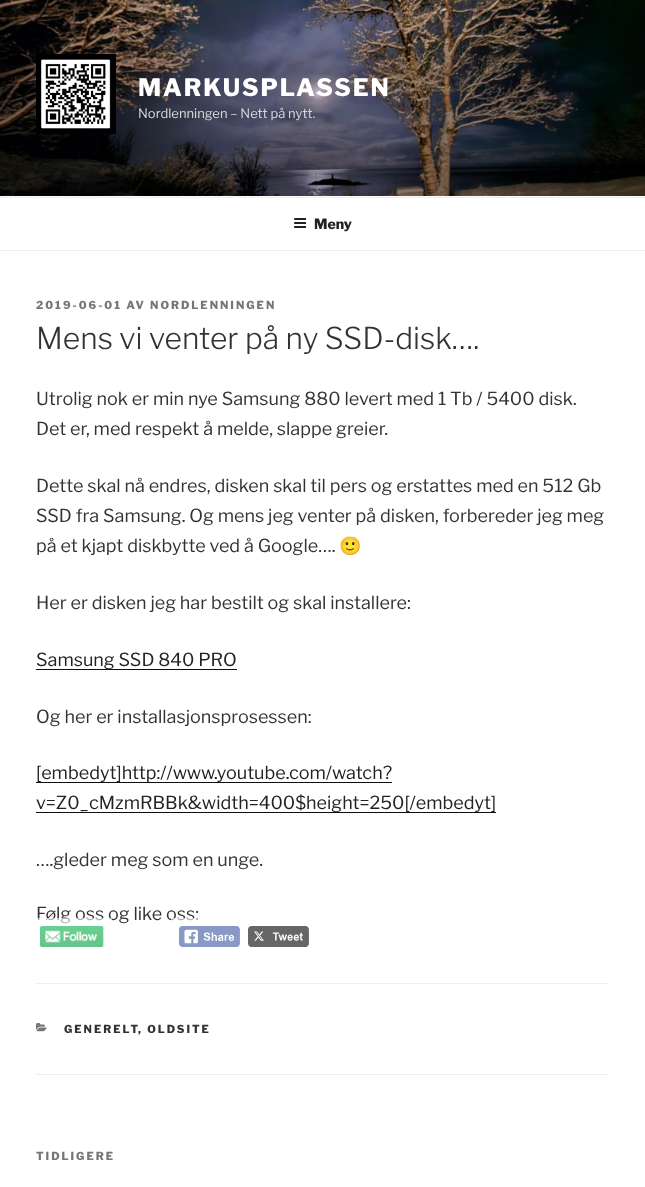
(async () => {
    const canvas = document.querySelector("canvas");
    canvas.width = 645;
    canvas.height = 1187;
    const context = canvas.getContext("2d");
    context.miterLimit = 4;
    context.fontKerning = "normal";
    function write(s, x, y, font, color) {
        context.font = font;
        context.fillStyle = color;
        context.fillText(s, x, y);
    }
    function block(x, y, w, h, color) {
        context.fillStyle = color;
        context.fillRect(x, y, w, h);
    }
    async function photo(src, x, y, w, h) {
        const img = new Image();
        img.src = src;
        await img.decode();
        context.drawImage(img, x, y, w, h);
    }

    block(0, 0, 645, 1187, "rgb(255, 255, 255)");
    block(0, 196, 645, 1, "rgb(250, 250, 250)");
    await photo("media/1.png", 0, 0, 645, 196);
    await photo("media/2.png", 36, 54, 80, 80);
    context.letterSpacing = "1.9px";
    write("MARKUSPLASSEN", 138, 96, "800 24px Libre Franklin", "rgb(255, 255, 255)");
    context.letterSpacing = "0px";
    write("Nordlenningen – Nett på nytt.", 138, 118, "13px Libre Franklin", "rgb(216, 217, 221)");
    block(0, 197, 645, 1, "rgb(238, 238, 238)");
    block(0, 250, 645, 1, "rgb(238, 238, 238)");
    await photo("media/3.png", 294, 218, 13, 10);
    write("Meny", 314, 229, "800 14px Libre Franklin", "rgb(34, 34, 34)");
    context.letterSpacing = "2px";
    write("2019-06-01 AV NORDLENNINGEN", 36, 309, "800 11px Libre Franklin", "rgb(118, 118, 118)");
    context.letterSpacing = "0px";
    write("Mens vi venter på ny SSD-disk….", 36, 349, "300 30px Libre Franklin", "rgb(51, 51, 51)");
    write("Utrolig nok er min nye Samsung 880 levert med 1 Tb / 5400 disk.", 36, 405, "18px Libre Franklin", "rgb(51, 51, 51)");
    write("Det er, med respekt å melde, slappe greier.", 36, 435, "18px Libre Franklin", "rgb(51, 51, 51)");
    write("Dette skal nå endres, disken skal til pers og erstattes med en 512 Gb", 36, 492, "18px Libre Franklin", "rgb(51, 51, 51)");
    write("SSD fra Samsung. Og mens jeg venter på disken, forbereder jeg meg", 36, 522, "18px Libre Franklin", "rgb(51, 51, 51)");
    write("på et kjapt diskbytte ved å Google….", 36, 552, "18px Libre Franklin", "rgb(51, 51, 51)");
    write("🙂", 339, 552, "18px Noto Color Emoji", "rgb(51, 51, 51)");
    write("Her er disken jeg har bestilt og skal installere:", 36, 609, "18px Libre Franklin", "rgb(51, 51, 51)");
    block(36, 669, 201, 1, "rgb(15, 15, 15)");
    write("Samsung SSD 840 PRO", 36, 666, "18px Libre Franklin", "rgb(34, 34, 34)");
    write("Og her er installasjonsprosessen:", 36, 723, "18px Libre Franklin", "rgb(51, 51, 51)");
    write("[embedyt]http://www.youtube.com/watch?", 36, 779, "18px Libre Franklin", "rgb(34, 34, 34)");
    block(36, 782, 356, 1, "rgb(15, 15, 15)");
    block(36, 812, 460, 1, "rgb(15, 15, 15)");
    write("v=Z0_cMzmRBBk&width=400$height=250[/embedyt]", 36, 809, "18px Libre Franklin", "rgb(34, 34, 34)");
    write("….gleder meg som en unge.", 36, 866, "18px Libre Franklin", "rgb(51, 51, 51)");
    write("Følg oss og like oss:", 36, 920, "18px Libre Franklin", "rgb(51, 51, 51)");
    context.strokeStyle = "rgba(255, 255, 255, 0.6)";
    context.lineWidth = 8;
    context.strokeRect(36, 922, 72, 29);
    await photo("media/4.png", 40, 926, 64, 21);
    context.strokeRect(175, 922, 69, 29);
    await photo("media/5.png", 179, 926, 61, 21);
    await photo("media/6.png", 248, 926, 61, 21);
    block(36, 983, 573, 1, "rgb(238, 238, 238)");
    block(36, 1074, 573, 1, "rgb(238, 238, 238)");
    await photo("media/7.png", 36, 1023, 11, 9);
    context.letterSpacing = "2px";
    write("GENERELT", 64, 1033, "800 11px Libre Franklin", "rgb(51, 51, 51)");
    write(", OLDSITE", 138, 1033, "800 11px Libre Franklin", "rgb(51, 51, 51)");
    write("TIDLIGERE", 36, 1160, "800 11px Libre Franklin", "rgb(118, 118, 118)");
})();
